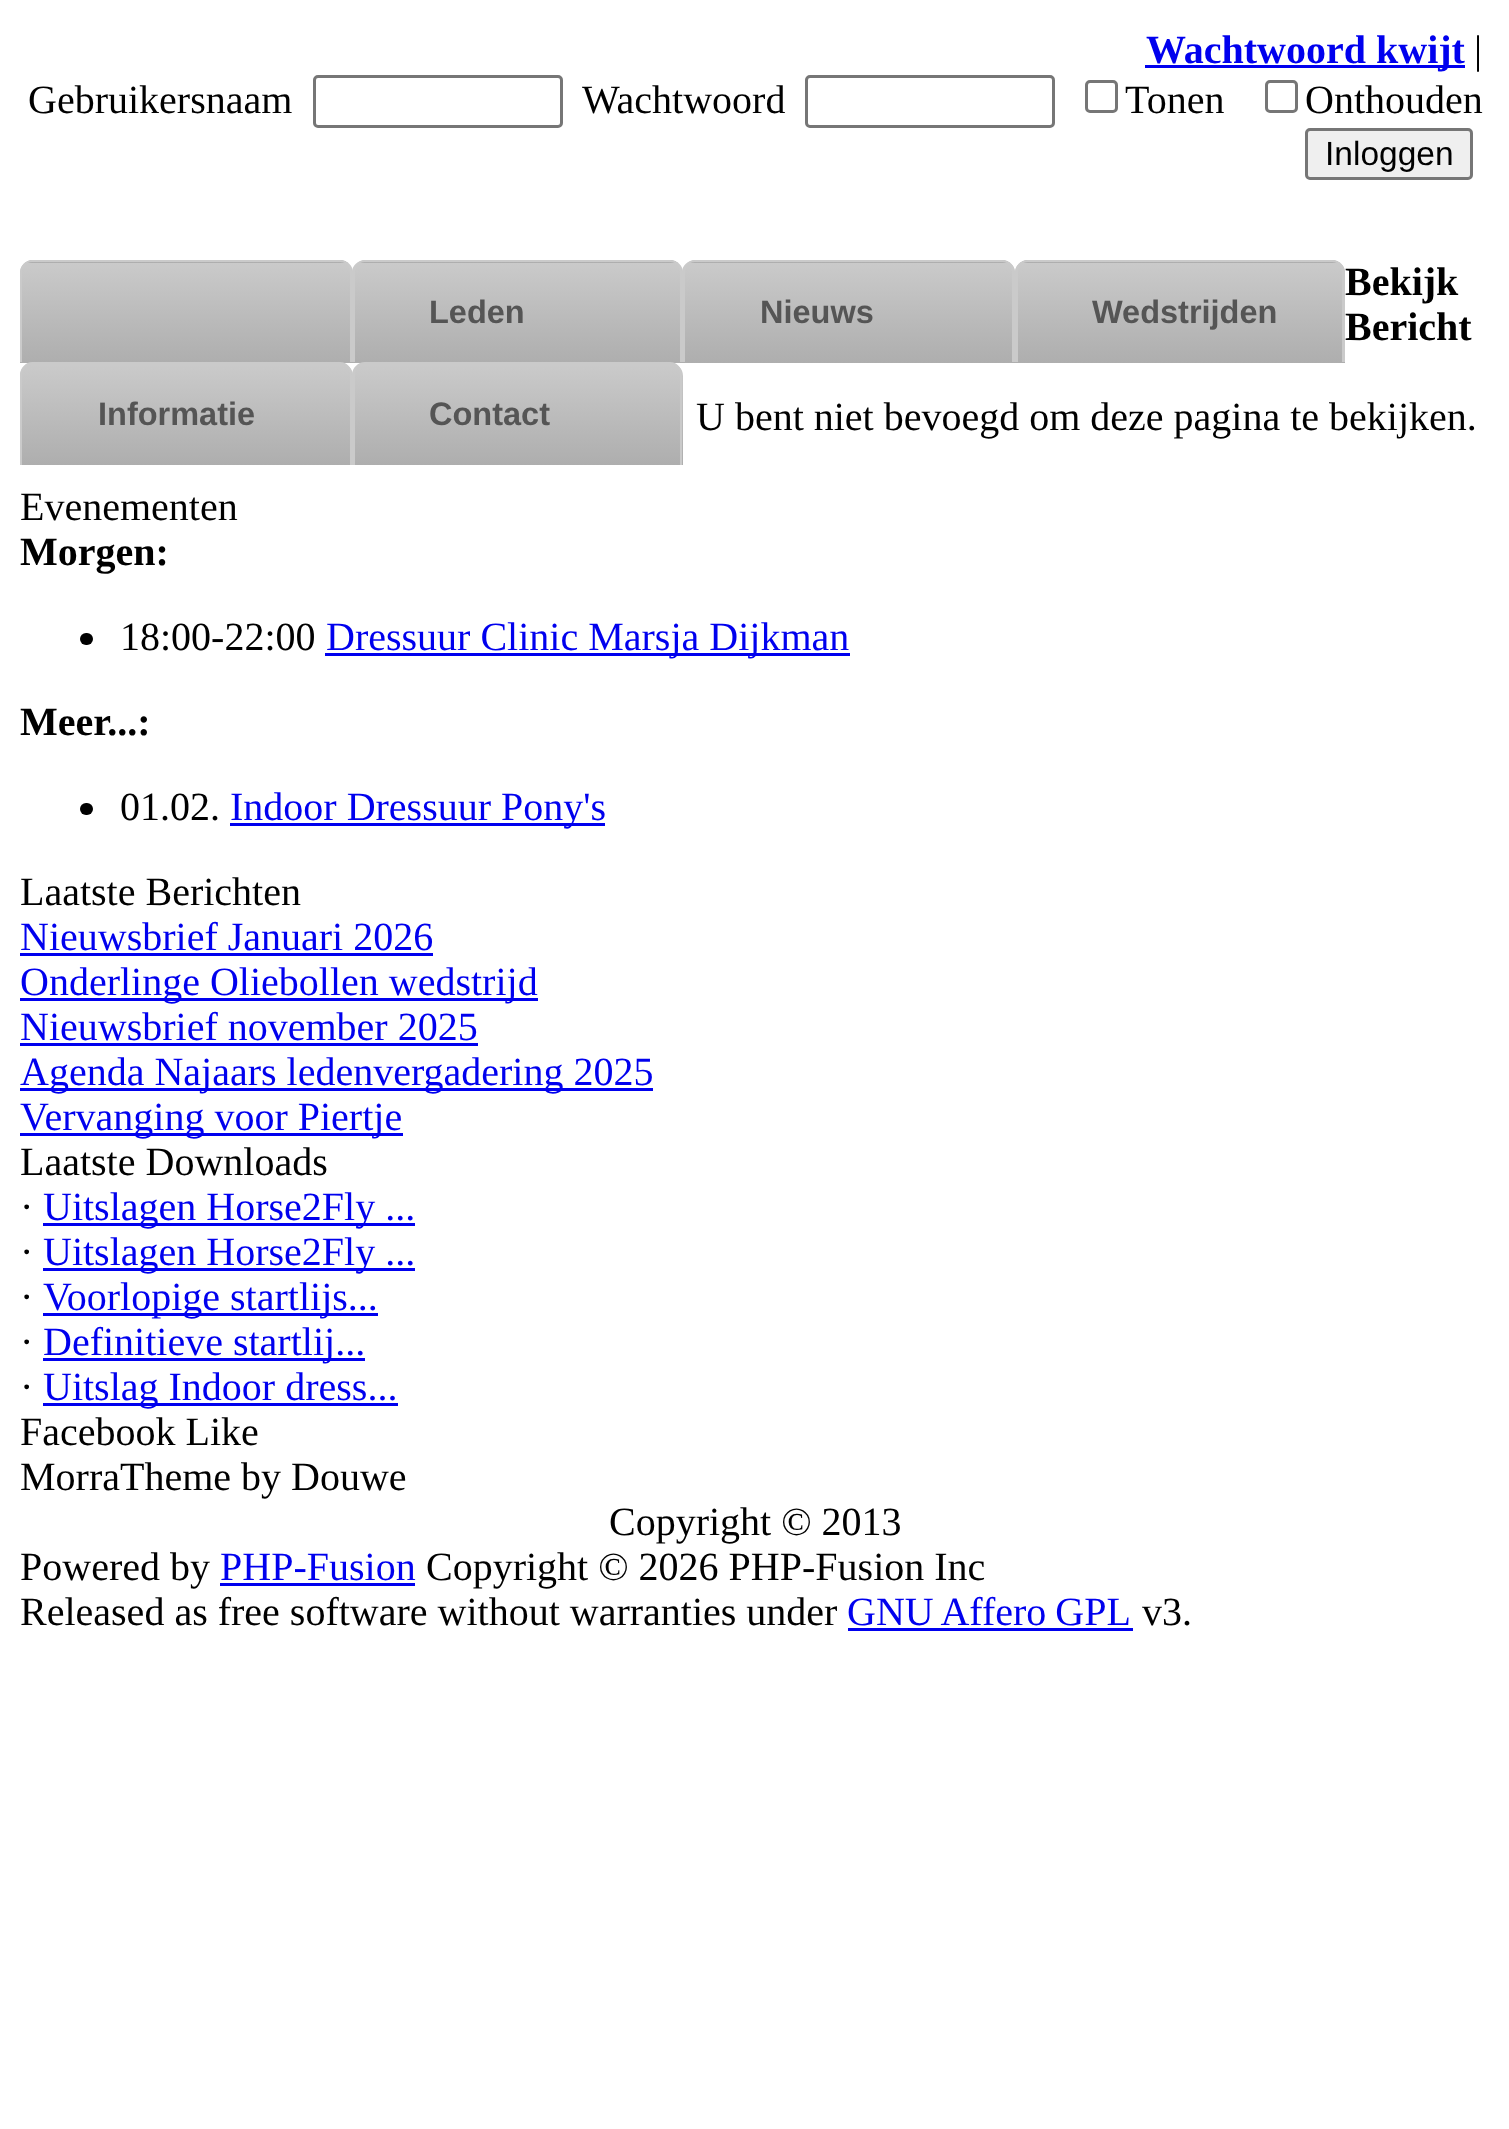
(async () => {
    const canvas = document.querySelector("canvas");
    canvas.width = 1509;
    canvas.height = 2129;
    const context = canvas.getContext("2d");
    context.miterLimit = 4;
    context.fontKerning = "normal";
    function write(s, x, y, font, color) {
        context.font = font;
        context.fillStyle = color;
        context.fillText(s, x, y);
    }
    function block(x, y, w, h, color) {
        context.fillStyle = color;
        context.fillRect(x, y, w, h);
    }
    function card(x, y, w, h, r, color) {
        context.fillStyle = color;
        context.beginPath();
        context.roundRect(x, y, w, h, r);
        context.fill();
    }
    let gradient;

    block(0, 0, 1509, 2129, "rgb(255, 255, 255)");
    block(1145, 65, 320, 3, "rgb(0, 0, 238)");
    write("Wachtwoord kwijt", 1146, 63, "bold 40px Liberation Serif", "rgb(0, 0, 238)");
    write("|", 1474, 63, "40px Liberation Serif", "rgb(0, 0, 0)");
    write("Gebruikersnaam", 28, 113, "40px Liberation Serif", "rgb(0, 0, 0)");
    context.beginPath();
    context.roundRect(314.5, 76.5, 247, 50, 3.5);
    context.strokeStyle = "rgb(118, 118, 118)";
    context.lineWidth = 3;
    context.stroke();
    write("Wachtwoord", 582, 113, "40px Liberation Serif", "rgb(0, 0, 0)");
    context.beginPath();
    context.roundRect(806.5, 76.5, 247, 50, 3.5);
    context.stroke();
    context.beginPath();
    context.roundRect(1086.5, 81.5, 30, 30, 3.5);
    context.stroke();
    write("Tonen", 1125, 113, "40px Liberation Serif", "rgb(0, 0, 0)");
    context.beginPath();
    context.roundRect(1266.5, 81.5, 30, 30, 3.5);
    context.stroke();
    write("Onthouden", 1305, 113, "40px Liberation Serif", "rgb(0, 0, 0)");
    context.fillStyle = "rgb(239, 239, 239)";
    context.beginPath();
    context.roundRect(1306.5, 129.5, 165, 49, 3.5);
    context.fill();
    context.stroke();
    write("Inloggen", 1325, 165, "33.5px Liberation Sans", "rgb(0, 0, 0)");
    write("Bekijk", 1345, 295, "bold 40px Liberation Serif", "rgb(0, 0, 0)");
    write("Bericht", 1345, 340, "bold 40px Liberation Serif", "rgb(0, 0, 0)");
    write("U bent niet bevoegd om deze pagina te bekijken.", 696, 430, "40px Liberation Serif", "rgb(0, 0, 0)");
    write("Evenementen", 20, 520, "40px Liberation Serif", "rgb(0, 0, 0)");
    write("Morgen:", 20, 565, "bold 40px Liberation Serif", "rgb(0, 0, 0)");
    card(80, 633, 13, 12, 6, "rgb(0, 0, 0)");
    write("18:00-22:00", 120, 650, "40px Liberation Serif", "rgb(0, 0, 0)");
    block(325, 653, 525, 3, "rgb(0, 0, 238)");
    write("Dressuur Clinic Marsja Dijkman", 326, 650, "40px Liberation Serif", "rgb(0, 0, 238)");
    write("Meer...:", 20, 735, "bold 40px Liberation Serif", "rgb(0, 0, 0)");
    card(80, 803, 13, 12, 6, "rgb(0, 0, 0)");
    write("01.02.", 120, 820, "40px Liberation Serif", "rgb(0, 0, 0)");
    block(230, 823, 375, 3, "rgb(0, 0, 238)");
    write("Indoor Dressuur Pony's", 230, 820, "40px Liberation Serif", "rgb(0, 0, 238)");
    write("Laatste Berichten", 20, 905, "40px Liberation Serif", "rgb(0, 0, 0)");
    write("Nieuwsbrief Januari 2026", 20, 950, "40px Liberation Serif", "rgb(0, 0, 238)");
    block(20, 953, 413, 3, "rgb(0, 0, 238)");
    block(20, 998, 518, 3, "rgb(0, 0, 238)");
    write("Onderlinge Oliebollen wedstrijd", 20, 995, "40px Liberation Serif", "rgb(0, 0, 238)");
    write("Nieuwsbrief november 2025", 20, 1040, "40px Liberation Serif", "rgb(0, 0, 238)");
    block(20, 1043, 458, 3, "rgb(0, 0, 238)");
    block(20, 1088, 633, 3, "rgb(0, 0, 238)");
    write("Agenda Najaars ledenvergadering 2025", 20, 1085, "40px Liberation Serif", "rgb(0, 0, 238)");
    block(20, 1133, 383, 3, "rgb(0, 0, 238)");
    write("Vervanging voor Piertje", 20, 1130, "40px Liberation Serif", "rgb(0, 0, 238)");
    write("Laatste Downloads", 20, 1175, "40px Liberation Serif", "rgb(0, 0, 0)");
    write("·", 20, 1220, "40px Liberation Serif", "rgb(0, 0, 0)");
    block(43, 1223, 372, 3, "rgb(0, 0, 238)");
    write("Uitslagen Horse2Fly ...", 43, 1220, "40px Liberation Serif", "rgb(0, 0, 238)");
    write("·", 20, 1265, "40px Liberation Serif", "rgb(0, 0, 0)");
    block(43, 1268, 372, 3, "rgb(0, 0, 238)");
    write("Uitslagen Horse2Fly ...", 43, 1265, "40px Liberation Serif", "rgb(0, 0, 238)");
    write("·", 20, 1310, "40px Liberation Serif", "rgb(0, 0, 0)");
    block(43, 1313, 335, 3, "rgb(0, 0, 238)");
    write("Voorlopige startlijs...", 43, 1310, "40px Liberation Serif", "rgb(0, 0, 238)");
    write("·", 20, 1355, "40px Liberation Serif", "rgb(0, 0, 0)");
    block(43, 1358, 322, 3, "rgb(0, 0, 238)");
    write("Definitieve startlij...", 43, 1355, "40px Liberation Serif", "rgb(0, 0, 238)");
    write("·", 20, 1400, "40px Liberation Serif", "rgb(0, 0, 0)");
    block(43, 1403, 355, 3, "rgb(0, 0, 238)");
    write("Uitslag Indoor dress...", 43, 1400, "40px Liberation Serif", "rgb(0, 0, 238)");
    write("Facebook Like", 20, 1445, "40px Liberation Serif", "rgb(0, 0, 0)");
    context.save();
    context.beginPath();
    context.roundRect(20, 260, 333, 103, [13, 13, 0, 0]);
    context.clip();
    gradient = context.createLinearGradient(23, 163, 23, 263);
    gradient.addColorStop(0, "rgb(202, 202, 202)");
    gradient.addColorStop(1, "rgb(174, 174, 174)");
    context.fillStyle = gradient;
    context.fillRect(20, 260, 333, 3);
    gradient = context.createLinearGradient(23, 263, 23, 363);
    gradient.addColorStop(0, "rgb(202, 202, 202)");
    gradient.addColorStop(1, "rgb(174, 174, 174)");
    context.fillStyle = gradient;
    context.fillRect(20, 263, 333, 100);
    context.restore();
    context.fillStyle = "rgb(202, 202, 202)";
    context.beginPath();
    context.moveTo(32, 260);
    context.lineTo(340, 260);
    context.bezierCurveTo(347, 260, 352, 266, 352, 272);
    context.lineTo(352, 362);
    context.lineTo(20, 362);
    context.lineTo(20, 272);
    context.bezierCurveTo(20, 266, 26, 260, 32, 260);
    context.closePath();
    context.moveTo(32, 262);
    context.lineTo(340, 262);
    context.bezierCurveTo(346, 262, 350, 267, 350, 272);
    context.lineTo(350, 362);
    context.lineTo(22, 362);
    context.lineTo(22, 272);
    context.bezierCurveTo(22, 267, 27, 262, 32, 262);
    context.closePath();
    context.fill("evenodd");
    context.save();
    context.beginPath();
    context.roundRect(353, 260, 330, 103, [13, 13, 0, 0]);
    context.clip();
    gradient = context.createLinearGradient(355, 163, 355, 263);
    gradient.addColorStop(0, "rgb(202, 202, 202)");
    gradient.addColorStop(1, "rgb(174, 174, 174)");
    context.fillStyle = gradient;
    context.fillRect(353, 260, 330, 3);
    gradient = context.createLinearGradient(355, 263, 355, 363);
    gradient.addColorStop(0, "rgb(202, 202, 202)");
    gradient.addColorStop(1, "rgb(174, 174, 174)");
    context.fillStyle = gradient;
    context.fillRect(353, 263, 330, 100);
    context.restore();
    context.beginPath();
    context.moveTo(365, 260);
    context.lineTo(670, 260);
    context.bezierCurveTo(677, 260, 682, 266, 682, 272);
    context.lineTo(682, 362);
    context.lineTo(352, 362);
    context.lineTo(352, 272);
    context.bezierCurveTo(352, 266, 358, 260, 365, 260);
    context.closePath();
    context.moveTo(365, 262);
    context.lineTo(670, 262);
    context.bezierCurveTo(676, 262, 680, 267, 680, 272);
    context.lineTo(680, 362);
    context.lineTo(355, 362);
    context.lineTo(355, 272);
    context.bezierCurveTo(355, 267, 359, 262, 365, 262);
    context.closePath();
    context.fill("evenodd");
    write("Leden", 429, 323, "bold 32.5px Liberation Sans", "rgb(85, 85, 85)");
    context.save();
    context.beginPath();
    context.roundRect(683, 260, 332, 103, [13, 13, 0, 0]);
    context.clip();
    gradient = context.createLinearGradient(685, 163, 685, 263);
    gradient.addColorStop(0, "rgb(202, 202, 202)");
    gradient.addColorStop(1, "rgb(174, 174, 174)");
    context.fillStyle = gradient;
    context.fillRect(683, 260, 332, 3);
    gradient = context.createLinearGradient(685, 263, 685, 363);
    gradient.addColorStop(0, "rgb(202, 202, 202)");
    gradient.addColorStop(1, "rgb(174, 174, 174)");
    context.fillStyle = gradient;
    context.fillRect(683, 263, 332, 100);
    context.restore();
    context.fillStyle = "rgb(202, 202, 202)";
    context.beginPath();
    context.moveTo(695, 260);
    context.lineTo(1002, 260);
    context.bezierCurveTo(1009, 260, 1015, 266, 1015, 272);
    context.lineTo(1015, 362);
    context.lineTo(682, 362);
    context.lineTo(682, 272);
    context.bezierCurveTo(682, 266, 688, 260, 695, 260);
    context.closePath();
    context.moveTo(695, 262);
    context.lineTo(1002, 262);
    context.bezierCurveTo(1008, 262, 1012, 267, 1012, 272);
    context.lineTo(1012, 362);
    context.lineTo(685, 362);
    context.lineTo(685, 272);
    context.bezierCurveTo(685, 267, 689, 262, 695, 262);
    context.closePath();
    context.fill("evenodd");
    write("Nieuws", 760, 323, "bold 32.5px Liberation Sans", "rgb(85, 85, 85)");
    context.save();
    context.beginPath();
    context.roundRect(1015, 260, 330, 103, [13, 13, 0, 0]);
    context.clip();
    gradient = context.createLinearGradient(1018, 163, 1018, 263);
    gradient.addColorStop(0, "rgb(202, 202, 202)");
    gradient.addColorStop(1, "rgb(174, 174, 174)");
    context.fillStyle = gradient;
    context.fillRect(1015, 260, 330, 3);
    gradient = context.createLinearGradient(1018, 263, 1018, 363);
    gradient.addColorStop(0, "rgb(202, 202, 202)");
    gradient.addColorStop(1, "rgb(174, 174, 174)");
    context.fillStyle = gradient;
    context.fillRect(1015, 263, 330, 100);
    context.restore();
    context.fillStyle = "rgb(202, 202, 202)";
    context.beginPath();
    context.moveTo(1028, 260);
    context.lineTo(1332, 260);
    context.bezierCurveTo(1339, 260, 1345, 266, 1345, 272);
    context.lineTo(1345, 362);
    context.lineTo(1015, 362);
    context.lineTo(1015, 272);
    context.bezierCurveTo(1015, 266, 1021, 260, 1028, 260);
    context.closePath();
    context.moveTo(1028, 262);
    context.lineTo(1332, 262);
    context.bezierCurveTo(1338, 262, 1342, 267, 1342, 272);
    context.lineTo(1342, 362);
    context.lineTo(1018, 362);
    context.lineTo(1018, 272);
    context.bezierCurveTo(1018, 267, 1022, 262, 1028, 262);
    context.closePath();
    context.fill("evenodd");
    write("Wedstrijden", 1092, 323, "bold 32.5px Liberation Sans", "rgb(85, 85, 85)");
    context.save();
    context.beginPath();
    context.roundRect(20, 363, 333, 102, [13, 13, 0, 0]);
    context.clip();
    gradient = context.createLinearGradient(23, 365, 23, 465);
    gradient.addColorStop(0, "rgb(202, 202, 202)");
    gradient.addColorStop(1, "rgb(174, 174, 174)");
    context.fillStyle = gradient;
    context.fillRect(20, 365, 333, 100);
    context.restore();
    context.fillStyle = "rgb(202, 202, 202)";
    context.beginPath();
    context.moveTo(32, 362);
    context.lineTo(340, 362);
    context.bezierCurveTo(347, 362, 352, 368, 352, 375);
    context.lineTo(352, 465);
    context.lineTo(20, 465);
    context.lineTo(20, 375);
    context.bezierCurveTo(20, 368, 26, 362, 32, 362);
    context.closePath();
    context.moveTo(32, 365);
    context.lineTo(340, 365);
    context.bezierCurveTo(346, 365, 350, 369, 350, 375);
    context.lineTo(350, 465);
    context.lineTo(22, 465);
    context.lineTo(22, 375);
    context.bezierCurveTo(22, 369, 27, 365, 32, 365);
    context.closePath();
    context.fill("evenodd");
    write("Informatie", 98, 425, "bold 32.5px Liberation Sans", "rgb(85, 85, 85)");
    context.save();
    context.beginPath();
    context.roundRect(353, 363, 330, 102, [13, 13, 0, 0]);
    context.clip();
    gradient = context.createLinearGradient(355, 365, 355, 465);
    gradient.addColorStop(0, "rgb(202, 202, 202)");
    gradient.addColorStop(1, "rgb(174, 174, 174)");
    context.fillStyle = gradient;
    context.fillRect(355, 365, 328, 100);
    context.restore();
    context.fillStyle = "rgb(202, 202, 202)";
    context.beginPath();
    context.moveTo(365, 362);
    context.lineTo(670, 362);
    context.bezierCurveTo(677, 362, 682, 368, 682, 375);
    context.lineTo(682, 465);
    context.lineTo(352, 465);
    context.lineTo(352, 375);
    context.bezierCurveTo(352, 368, 358, 362, 365, 362);
    context.closePath();
    context.moveTo(365, 365);
    context.lineTo(670, 365);
    context.bezierCurveTo(676, 365, 680, 369, 680, 375);
    context.lineTo(680, 465);
    context.lineTo(355, 465);
    context.lineTo(355, 375);
    context.bezierCurveTo(355, 369, 359, 365, 365, 365);
    context.closePath();
    context.fill("evenodd");
    write("Contact", 429, 425, "bold 32.5px Liberation Sans", "rgb(85, 85, 85)");
    write("MorraTheme by Douwe", 20, 1490, "40px Liberation Serif", "rgb(0, 0, 0)");
    write("Copyright © 2013", 609, 1535, "40px Liberation Serif", "rgb(0, 0, 0)");
    write("Powered by", 20, 1580, "40px Liberation Serif", "rgb(0, 0, 0)");
    write("PHP-Fusion", 220, 1580, "40px Liberation Serif", "rgb(0, 0, 238)");
    block(220, 1583, 195, 3, "rgb(0, 0, 238)");
    write("Copyright © 2026 PHP-Fusion Inc", 426, 1580, "40px Liberation Serif", "rgb(0, 0, 0)");
    write("Released as free software without warranties under", 20, 1625, "40px Liberation Serif", "rgb(0, 0, 0)");
    context.wordSpacing = "-1px";
    write("GNU Affero GPL", 847, 1625, "40px Liberation Serif", "rgb(0, 0, 238)");
    block(848, 1628, 285, 3, "rgb(0, 0, 238)");
    context.wordSpacing = "0px";
    write("v3.", 1142, 1625, "40px Liberation Serif", "rgb(0, 0, 0)");
})();
